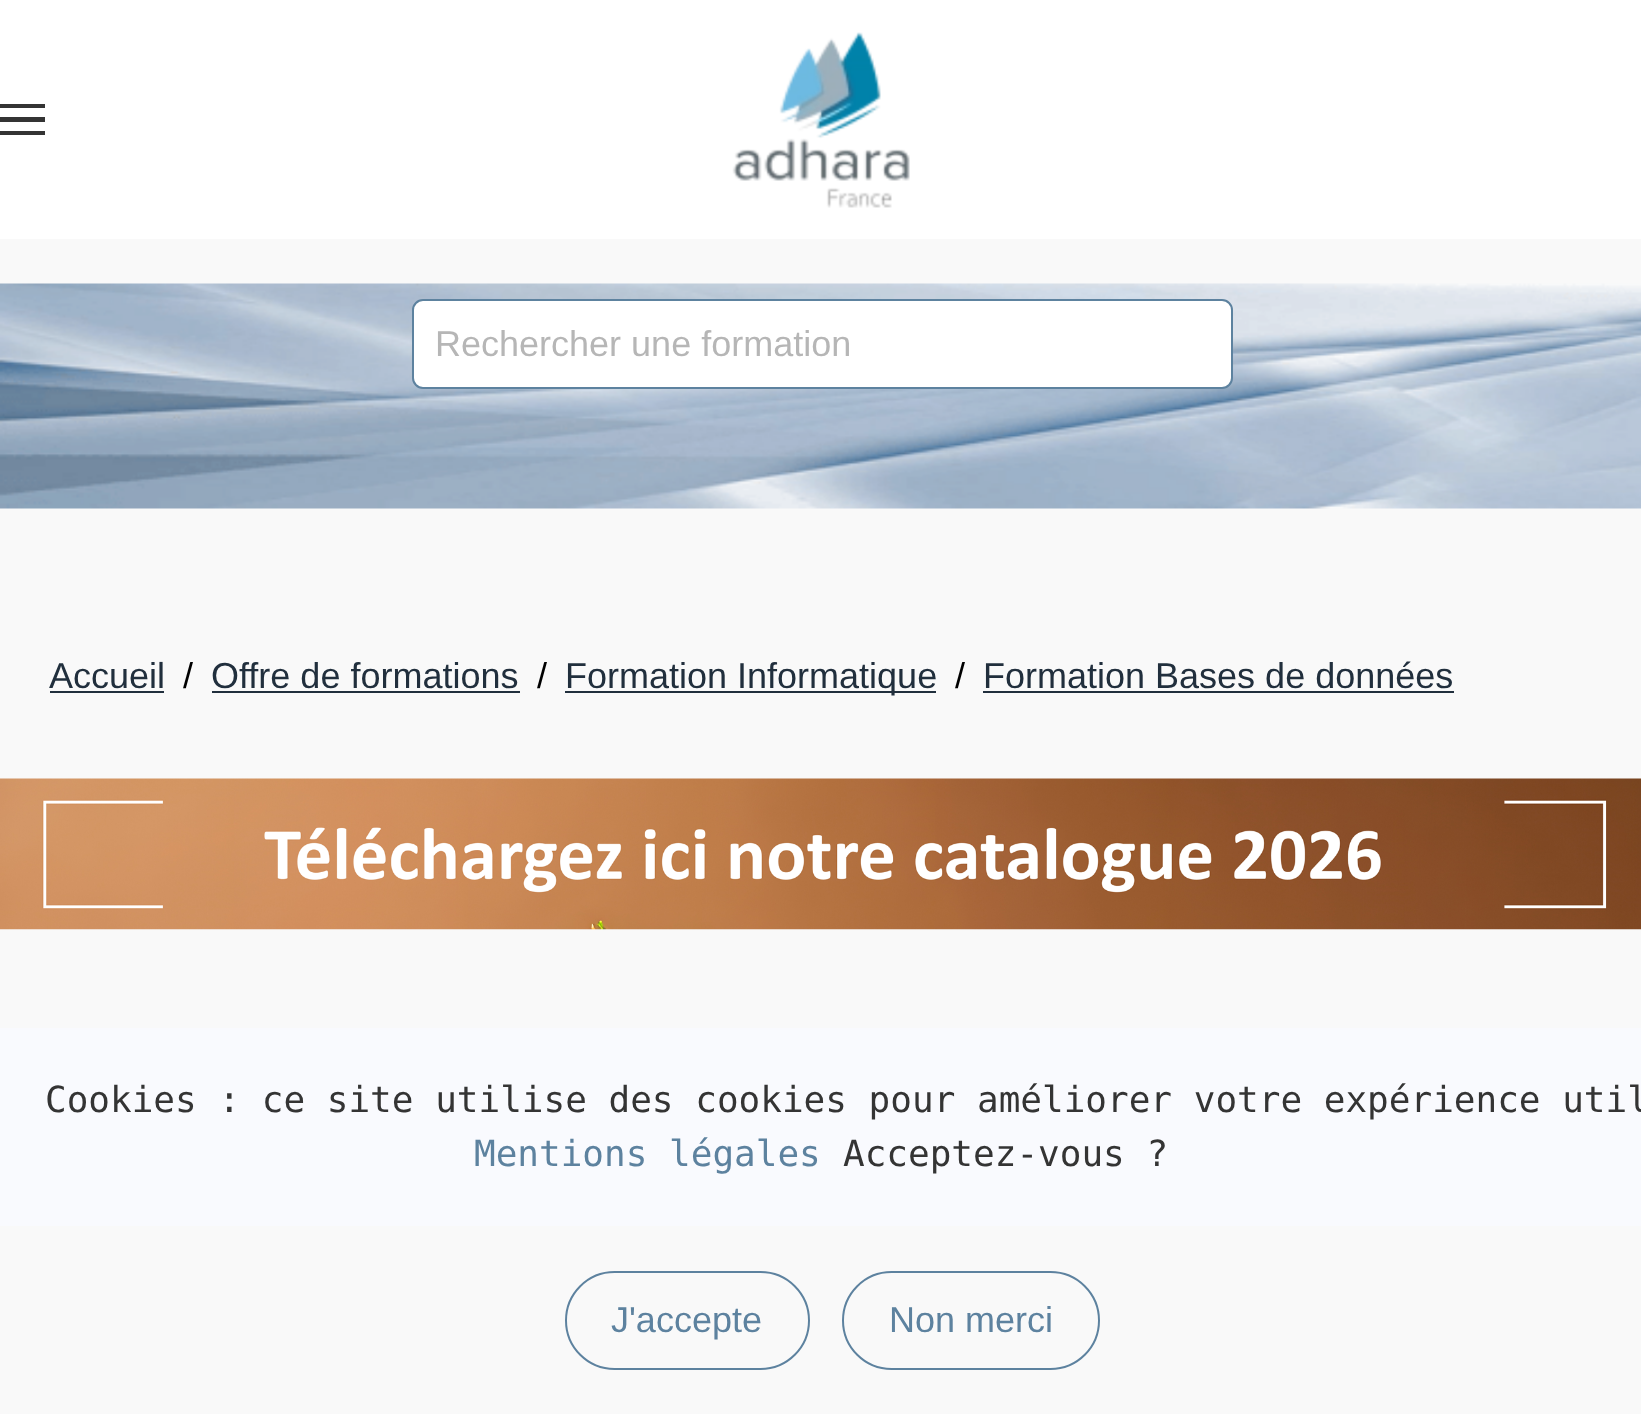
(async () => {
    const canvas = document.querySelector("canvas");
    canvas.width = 1641;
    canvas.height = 1414;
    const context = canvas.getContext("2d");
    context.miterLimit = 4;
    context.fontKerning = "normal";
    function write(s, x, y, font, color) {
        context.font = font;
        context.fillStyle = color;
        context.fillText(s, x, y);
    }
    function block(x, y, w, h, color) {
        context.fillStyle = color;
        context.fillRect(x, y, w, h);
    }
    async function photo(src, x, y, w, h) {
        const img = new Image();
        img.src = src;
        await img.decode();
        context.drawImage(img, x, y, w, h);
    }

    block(0, 0, 1641, 1414, "rgb(249, 249, 249)");
    block(0, 0, 1641, 239, "rgb(255, 255, 255)");
    block(0, 104, 45, 4, "rgb(52, 52, 52)");
    block(0, 117, 45, 5, "rgb(52, 52, 52)");
    block(0, 131, 45, 4, "rgb(52, 52, 52)");
    await photo("media/1.png", 732, 32, 178, 176);
    await photo("media/2.png", 0, 283, 1641, 226);
    context.fillStyle = "rgb(255, 255, 255)";
    context.beginPath();
    context.roundRect(413, 300, 819, 88, 10);
    context.fill();
    context.strokeStyle = "rgb(93, 130, 159)";
    context.lineWidth = 2;
    context.stroke();
    write("Rechercher une formation", 435, 356, "36px Liberation Sans", "rgb(182, 182, 182)");
    write("Accueil", 49, 688, "36px Liberation Sans", "rgb(33, 47, 61)");
    block(50, 691, 114, 2, "rgb(33, 47, 61)");
    write("/", 183, 688, "36px Liberation Sans", "rgb(0, 0, 0)");
    write("Offre de formations", 211, 688, "36px Liberation Sans", "rgb(33, 47, 61)");
    block(212, 691, 308, 2, "rgb(33, 47, 61)");
    write("/", 537, 688, "36px Liberation Sans", "rgb(0, 0, 0)");
    block(565, 691, 371, 2, "rgb(33, 47, 61)");
    write("Formation Informatique", 565, 688, "36px Liberation Sans", "rgb(33, 47, 61)");
    write("/", 955, 688, "36px Liberation Sans", "rgb(0, 0, 0)");
    write("Formation Bases de données", 983, 688, "36px Liberation Sans", "rgb(33, 47, 61)");
    block(983, 691, 471, 2, "rgb(33, 47, 61)");
    await photo("media/3.png", 0, 778, 1641, 152);
    block(0, 1028, 1641, 198, "rgb(249, 250, 254)");
    write("Cookies : ce site utilise des cookies pour améliorer votre expérience util", 45, 1112, "36px DejaVu Sans Mono", "rgb(52, 52, 52)");
    write("Mentions légales", 474, 1166, "36px DejaVu Sans Mono", "rgb(93, 130, 159)");
    write("Acceptez-vous ?", 843, 1166, "36px DejaVu Sans Mono", "rgb(52, 52, 52)");
    context.beginPath();
    context.roundRect(566, 1272, 243, 97, 48.5);
    context.stroke();
    write("J'accepte", 611, 1332, "36px Liberation Sans", "rgb(93, 130, 159)");
    context.beginPath();
    context.roundRect(843, 1272, 256, 97, 48.5);
    context.stroke();
    write("Non merci", 889, 1332, "36px Liberation Sans", "rgb(93, 130, 159)");
})();
